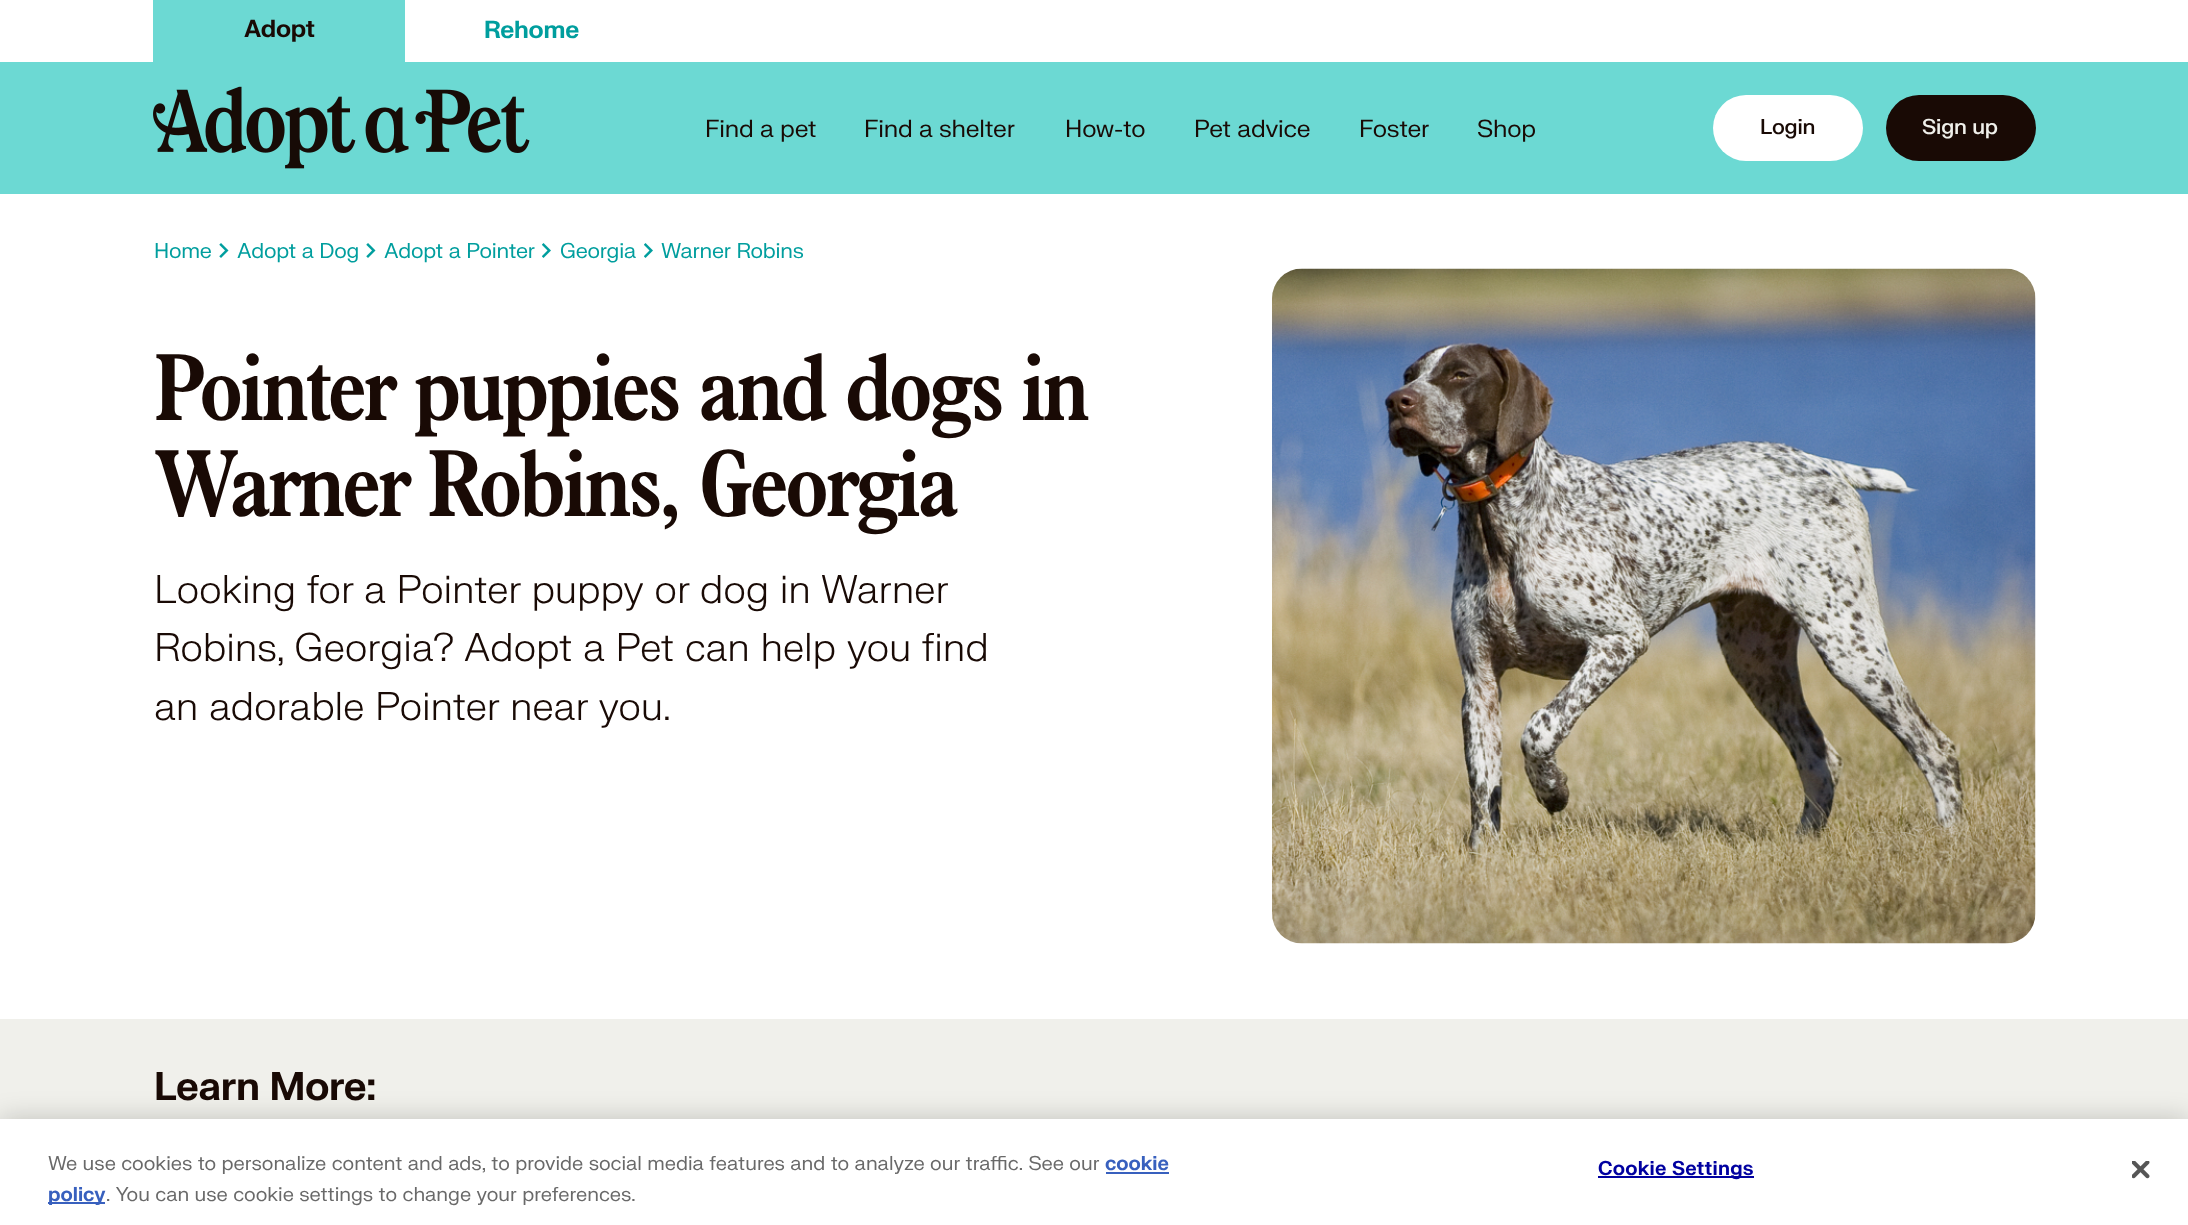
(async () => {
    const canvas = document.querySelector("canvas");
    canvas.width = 2188;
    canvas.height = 1225;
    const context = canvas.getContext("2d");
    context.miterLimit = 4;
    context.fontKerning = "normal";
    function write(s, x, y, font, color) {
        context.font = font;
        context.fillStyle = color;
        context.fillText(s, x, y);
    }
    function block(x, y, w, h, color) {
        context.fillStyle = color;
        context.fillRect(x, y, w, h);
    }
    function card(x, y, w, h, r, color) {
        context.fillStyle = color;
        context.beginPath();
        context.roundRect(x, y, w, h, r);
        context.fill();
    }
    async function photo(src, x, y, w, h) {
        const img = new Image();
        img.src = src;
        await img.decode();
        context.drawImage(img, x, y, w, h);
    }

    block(0, 0, 2188, 1225, "rgb(255, 255, 255)");
    block(153, 0, 252, 62, "rgb(108, 217, 211)");
    context.letterSpacing = "-0.2px";
    write("Adopt", 244, 37, "bold 24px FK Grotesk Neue", "rgb(25, 10, 5)");
    write("Rehome", 484, 38, "bold 24px FK Grotesk Neue", "rgb(0, 158, 158)");
    block(0, 62, 2188, 132, "rgb(108, 217, 211)");
    await photo("media/1.png", 153, 86, 377, 83);
    write("Find a pet", 705, 137, "24px FK Grotesk Neue", "rgb(25, 10, 5)");
    write("Find a shelter", 864, 137, "24px FK Grotesk Neue", "rgb(25, 10, 5)");
    write("How-to", 1065, 137, "24px FK Grotesk Neue", "rgb(25, 10, 5)");
    write("Pet advice", 1194, 137, "24px FK Grotesk Neue", "rgb(25, 10, 5)");
    write("Foster", 1359, 137, "24px FK Grotesk Neue", "rgb(25, 10, 5)");
    write("Shop", 1477, 137, "24px FK Grotesk Neue", "rgb(25, 10, 5)");
    card(1713, 95, 150, 66, 33, "rgb(255, 255, 255)");
    write("Login", 1760, 134, "500 21px FK Grotesk Neue", "rgb(25, 10, 5)");
    card(1886, 95, 150, 66, 33, "rgb(25, 10, 5)");
    write("Sign up", 1922, 134, "500 21px FK Grotesk Neue", "rgb(240, 240, 235)");
    write("Home", 154, 258, "21px FK Grotesk Neue", "rgb(0, 158, 158)");
    await photo("media/2.png", 219, 243, 10, 15);
    write("Adopt a Dog", 237, 258, "21px FK Grotesk Neue", "rgb(0, 158, 158)");
    await photo("media/2.png", 366, 243, 10, 15);
    write("Adopt a Pointer", 384, 258, "21px FK Grotesk Neue", "rgb(0, 158, 158)");
    await photo("media/3.png", 542, 243, 9, 15);
    write("Georgia", 560, 258, "21px FK Grotesk Neue", "rgb(0, 158, 158)");
    await photo("media/3.png", 644, 243, 9, 15);
    write("Warner Robins", 661, 258, "21px FK Grotesk Neue", "rgb(0, 158, 158)");
    context.letterSpacing = "-3.85px";
    write("Pointer puppies and dogs in", 154, 420, "500 96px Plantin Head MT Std", "rgb(25, 10, 5)");
    write("Warner Robins, Georgia", 154, 516, "500 96px Plantin Head MT Std", "rgb(25, 10, 5)");
    context.letterSpacing = "-0.2px";
    write("Looking for a Pointer puppy or dog in Warner", 154, 603, "300 39px FK Grotesk Neue", "rgb(25, 10, 5)");
    write("Robins, Georgia? Adopt a Pet can help you find", 154, 661, "300 39px FK Grotesk Neue", "rgb(25, 10, 5)");
    write("an adorable Pointer near you.", 154, 720, "300 39px FK Grotesk Neue", "rgb(25, 10, 5)");
    await photo("media/4.png", 1272, 268, 764, 676);
    block(0, 1019, 2188, 100, "rgb(240, 240, 235)");
    context.letterSpacing = "-0.4px";
    write("Learn More:", 154, 1100, "bold 39px FK Grotesk Neue", "rgb(25, 10, 5)");
    context.fillStyle = "rgba(0, 0, 0, 0.2)";
    context.filter = "blur(13.5px)";
    context.beginPath();
    context.rect(0, 1119, 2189, 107);
    context.fill();
    context.filter = "none";
    block(0, 1119, 2188, 106, "rgb(255, 255, 255)");
    context.letterSpacing = "0px";
    write("We use cookies to personalize content and ads, to provide social media features and to analyze our traffic. See our", 48, 1170, "19.5px FK Grotesk Neue", "rgb(105, 105, 105)");
    write("cookie", 1105, 1170, "bold 19.5px FK Grotesk Neue", "rgb(56, 96, 190)");
    block(1106, 1172, 63, 2, "rgb(56, 96, 190)");
    block(48, 1202, 57, 2, "rgb(56, 96, 190)");
    write("policy", 48, 1201, "bold 19.5px FK Grotesk Neue", "rgb(56, 96, 190)");
    write(". You can use cookie settings to change your preferences.", 106, 1201, "19.5px FK Grotesk Neue", "rgb(105, 105, 105)");
    block(1598, 1176, 156, 2, "rgb(0, 0, 160)");
    context.letterSpacing = "0.25px";
    write("Cookie Settings", 1598, 1175, "bold 19.5px FK Grotesk Neue", "rgb(0, 0, 160)");
    await photo("media/5.png", 2132, 1161, 18, 18);
})();
